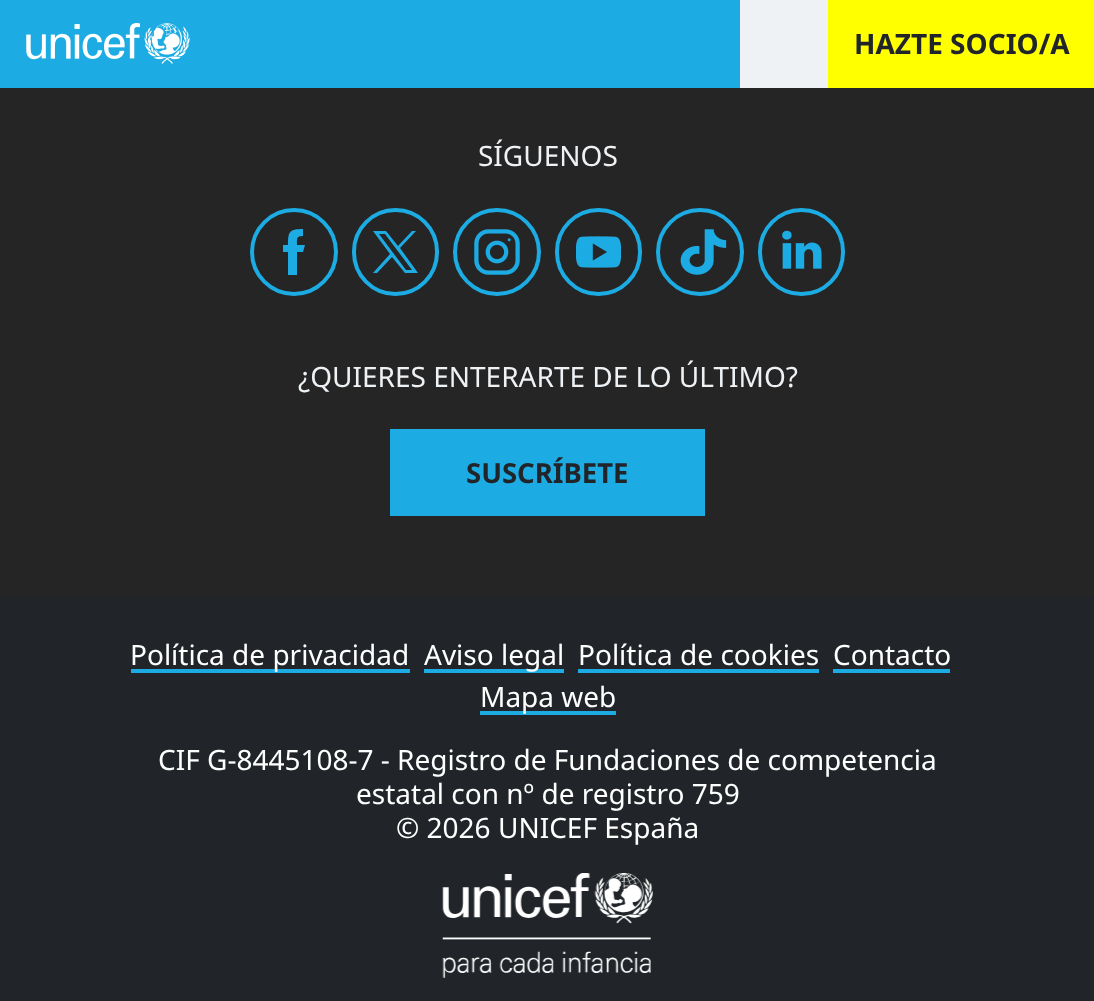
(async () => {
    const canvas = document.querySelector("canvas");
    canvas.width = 1094;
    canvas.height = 1001;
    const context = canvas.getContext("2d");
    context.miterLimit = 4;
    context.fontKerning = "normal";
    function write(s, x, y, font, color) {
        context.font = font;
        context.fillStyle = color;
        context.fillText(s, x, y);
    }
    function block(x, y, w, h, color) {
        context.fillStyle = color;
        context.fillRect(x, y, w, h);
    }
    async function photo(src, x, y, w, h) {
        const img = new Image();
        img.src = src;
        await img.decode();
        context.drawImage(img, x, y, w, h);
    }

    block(0, 0, 1094, 1001, "rgb(37, 37, 37)");
    block(0, 0, 740, 88, "rgb(28, 171, 226)");
    await photo("media/1.png", 26, 23, 164, 41);
    block(740, 0, 88, 88, "rgb(239, 242, 245)");
    block(828, 0, 266, 88, "rgb(255, 255, 0)");
    write("HAZTE SOCIO/A", 854, 54, "bold 28px Noto Sans", "rgb(33, 37, 41)");
    write("SÍGUENOS", 478, 166, "28px Noto Sans", "rgb(239, 242, 245)");
    context.beginPath();
    context.arc(294, 252, 42, 0, Math.PI * 2);
    context.strokeStyle = "rgb(28, 171, 226)";
    context.lineWidth = 4;
    context.stroke();
    context.fillStyle = "rgb(28, 171, 226)";
    context.beginPath();
    context.moveTo(297, 245);
    context.bezierCurveTo(297, 239, 296, 236, 303, 236);
    context.lineTo(303, 229);
    context.bezierCurveTo(289, 229, 288, 232, 288, 245);
    context.lineTo(283, 245);
    context.lineTo(283, 252);
    context.lineTo(288, 252);
    context.lineTo(288, 275);
    context.lineTo(297, 275);
    context.lineTo(297, 252);
    context.lineTo(303, 252);
    context.lineTo(305, 245);
    context.closePath();
    context.fill();
    context.beginPath();
    context.roundRect(354, 210, 83, 84, 41.5);
    context.stroke();
    context.beginPath();
    context.moveTo(373, 231);
    context.lineTo(390, 254);
    context.lineTo(373, 273);
    context.lineTo(377, 273);
    context.lineTo(392, 257);
    context.lineTo(405, 273);
    context.lineTo(418, 273);
    context.lineTo(400, 248);
    context.lineTo(416, 231);
    context.lineTo(412, 231);
    context.lineTo(398, 246);
    context.lineTo(386, 231);
    context.closePath();
    context.moveTo(379, 234);
    context.lineTo(385, 234);
    context.lineTo(412, 270);
    context.lineTo(406, 270);
    context.closePath();
    context.fill();
    context.beginPath();
    context.arc(497, 252, 42, 0, Math.PI * 2);
    context.stroke();
    await photo("media/2.png", 474, 229, 46, 46);
    context.beginPath();
    context.roundRect(557, 210, 83, 84, 41.5);
    context.stroke();
    await photo("media/3.png", 576, 236, 45, 32);
    context.beginPath();
    context.arc(700, 252, 42, 0, Math.PI * 2);
    context.stroke();
    await photo("media/4.png", 680, 229, 47, 46);
    context.beginPath();
    context.roundRect(760, 210, 83, 84, 41.5);
    context.stroke();
    await photo("media/5.png", 782, 230, 40, 39);
    write("¿QUIERES ENTERARTE DE LO ÚLTIMO?", 298, 387, "28px Noto Sans", "rgb(239, 242, 245)");
    block(390, 429, 315, 87, "rgb(28, 171, 226)");
    write("SUSCRÍBETE", 466, 483, "bold 27.5px Noto Sans", "rgb(33, 37, 41)");
    block(0, 597, 1094, 404, "rgb(33, 37, 41)");
    block(131, 669, 279, 4, "rgb(28, 171, 226)");
    write("Política de privacidad", 130, 665, "28px Noto Sans", "rgb(255, 255, 255)");
    block(424, 669, 140, 4, "rgb(28, 171, 226)");
    write("Aviso legal", 424, 665, "28px Noto Sans", "rgb(255, 255, 255)");
    write("Política de cookies", 578, 665, "28px Noto Sans", "rgb(255, 255, 255)");
    block(578, 669, 241, 4, "rgb(28, 171, 226)");
    write("Contacto", 833, 665, "28px Noto Sans", "rgb(255, 255, 255)");
    block(833, 669, 117, 4, "rgb(28, 171, 226)");
    block(480, 711, 136, 4, "rgb(28, 171, 226)");
    write("Mapa web", 480, 707, "28px Noto Sans", "rgb(255, 255, 255)");
    write("CIF G-8445108-7 - Registro de Fundaciones de competencia", 158, 770, "28px Noto Sans", "rgb(255, 255, 255)");
    write("estatal con nº de registro 759", 356, 804, "28px Noto Sans", "rgb(255, 255, 255)");
    write("© 2026 UNICEF España", 396, 838, "28px Noto Sans", "rgb(255, 255, 255)");
    await photo("media/6.png", 442, 873, 211, 105);
})();
